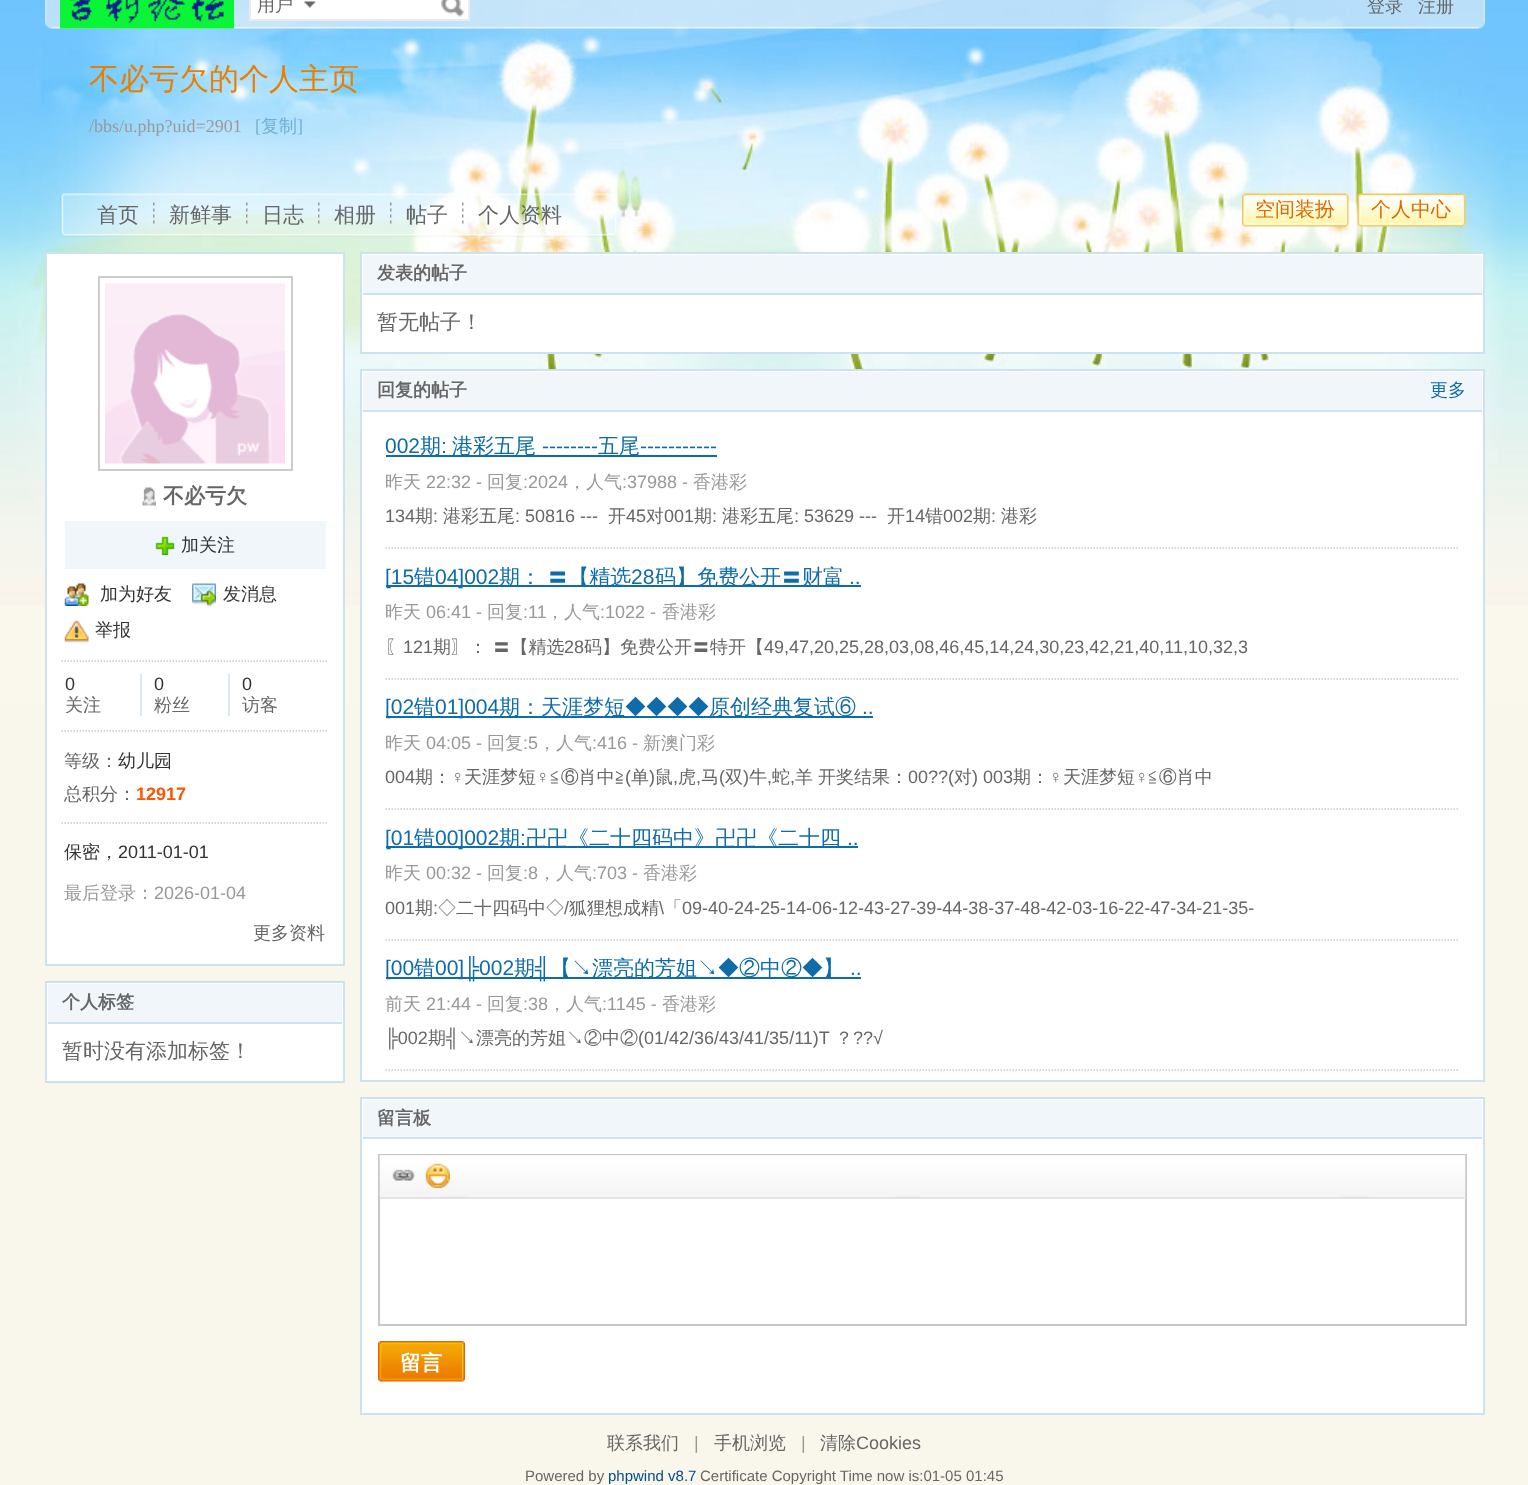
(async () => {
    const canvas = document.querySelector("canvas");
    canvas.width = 1528;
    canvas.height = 1485;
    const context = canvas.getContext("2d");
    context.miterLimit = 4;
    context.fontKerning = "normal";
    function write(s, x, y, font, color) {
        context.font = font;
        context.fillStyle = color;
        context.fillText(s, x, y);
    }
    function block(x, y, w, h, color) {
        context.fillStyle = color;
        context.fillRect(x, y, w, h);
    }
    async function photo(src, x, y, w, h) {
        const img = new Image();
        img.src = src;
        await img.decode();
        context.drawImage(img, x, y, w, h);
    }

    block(0, 0, 1528, 1485, "rgb(249, 247, 235)");
    await photo("media/1.png", 0, 0, 1528, 702);
    await photo("media/2.png", 45, 0, 1440, 29);
    await photo("media/3.png", 60, 0, 174, 29);
    context.fillStyle = "rgb(255, 255, 255)";
    context.beginPath();
    context.rect(250, -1, 219, 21);
    context.fill();
    context.strokeStyle = "rgb(234, 236, 235)";
    context.lineWidth = 2;
    context.stroke();
    await photo("media/4.png", 304, 1, 12, 7);
    write("用户", 257, 11, "500 18px WenQuanYi Zen Hei", "rgb(102, 102, 102)");
    await photo("media/5.png", 441, 0, 23, 17);
    write("登录", 1367, 12, "500 18px WenQuanYi Zen Hei", "rgb(102, 102, 102)");
    write("注册", 1418, 12, "500 18px WenQuanYi Zen Hei", "rgb(102, 102, 102)");
    write("不必亏欠的个人主页", 89, 89, "500 30px WenQuanYi Zen Hei", "rgb(234, 126, 0)");
    write("/bbs/u.php?uid=2901", 89, 132, "18px Liberation Serif", "rgb(153, 153, 153)");
    write("[", 255, 132, "18px Liberation Serif", "rgb(111, 176, 214)");
    write("复制", 261, 132, "500 18px WenQuanYi Zen Hei", "rgb(111, 176, 214)");
    write("]", 297, 132, "18px Liberation Serif", "rgb(111, 176, 214)");
    await photo("media/6.png", 60, 193, 557, 44);
    await photo("media/7.png", 153, 202, 2, 22);
    write("首页", 97, 222, "500 21px WenQuanYi Zen Hei", "rgb(102, 102, 102)");
    await photo("media/8.png", 246, 202, 2, 22);
    write("新鲜事", 169, 222, "500 21px WenQuanYi Zen Hei", "rgb(102, 102, 102)");
    await photo("media/9.png", 318, 202, 2, 22);
    write("日志", 262, 222, "500 21px WenQuanYi Zen Hei", "rgb(102, 102, 102)");
    await photo("media/10.png", 390, 202, 2, 22);
    write("相册", 334, 222, "500 21px WenQuanYi Zen Hei", "rgb(102, 102, 102)");
    await photo("media/11.png", 462, 202, 2, 22);
    write("帖子", 406, 222, "500 21px WenQuanYi Zen Hei", "rgb(102, 102, 102)");
    write("个人资料", 478, 222, "500 21px WenQuanYi Zen Hei", "rgb(102, 102, 102)");
    await photo("media/12.png", 1343, 193, 6, 34);
    await photo("media/13.png", 1242, 193, 104, 34);
    write("空间装扮", 1255, 216, "500 20px WenQuanYi Zen Hei", "rgb(221, 104, 0)");
    await photo("media/14.png", 1460, 193, 6, 34);
    await photo("media/15.png", 1357, 193, 106, 34);
    write("个人中心", 1371, 216, "500 20px WenQuanYi Zen Hei", "rgb(221, 104, 0)");
    context.fillStyle = "rgb(255, 255, 255)";
    context.beginPath();
    context.rect(46, 253, 298, 712);
    context.fill();
    context.strokeStyle = "rgb(204, 226, 237)";
    context.stroke();
    context.strokeStyle = "rgb(204, 204, 204)";
    context.strokeRect(99, 277, 193, 193);
    await photo("media/16.png", 105, 283, 180, 181);
    await photo("media/17.png", 142, 487, 14, 19);
    write("不必亏欠", 163, 503, "bold 21px WenQuanYi Zen Hei", "rgb(102, 102, 102)");
    block(65, 521, 261, 48, "rgb(241, 246, 250)");
    await photo("media/18.png", 155, 536, 20, 19);
    write("加关注", 181, 551, "500 18px WenQuanYi Zen Hei", "rgb(51, 51, 51)");
    await photo("media/19.png", 64, 583, 25, 23);
    write("加为好友", 100, 600, "500 18px WenQuanYi Zen Hei", "rgb(51, 51, 51)");
    await photo("media/20.png", 192, 583, 24, 23);
    write("发消息", 223, 600, "500 18px WenQuanYi Zen Hei", "rgb(51, 51, 51)");
    await photo("media/21.png", 64, 620, 25, 23);
    write("举报", 95, 636, "500 18px WenQuanYi Zen Hei", "rgb(51, 51, 51)");
    context.beginPath();
    context.moveTo(61.5, 661);
    context.lineTo(328.5, 661);
    context.lineWidth = 1.5;
    context.setLineDash([1.5, 1.5]);
    context.stroke();
    write("0", 65, 690, "18px Liberation Sans", "rgb(51, 51, 51)");
    write("关注", 65, 711, "500 18px WenQuanYi Zen Hei", "rgb(102, 102, 102)");
    block(140, 674, 2, 42, "rgb(220, 233, 241)");
    write("0", 154, 690, "18px Liberation Sans", "rgb(51, 51, 51)");
    write("粉丝", 154, 711, "500 18px WenQuanYi Zen Hei", "rgb(102, 102, 102)");
    block(228, 674, 2, 42, "rgb(220, 233, 241)");
    write("0", 242, 690, "18px Liberation Sans", "rgb(51, 51, 51)");
    write("访客", 242, 711, "500 18px WenQuanYi Zen Hei", "rgb(102, 102, 102)");
    context.beginPath();
    context.moveTo(61.5, 731);
    context.lineTo(328.5, 731);
    context.stroke();
    write("等级：", 64, 767, "500 18px WenQuanYi Zen Hei", "rgb(102, 102, 102)");
    write("幼儿园", 118, 767, "500 18px WenQuanYi Zen Hei", "rgb(51, 51, 51)");
    write("总积分：", 64, 800, "500 18px WenQuanYi Zen Hei", "rgb(102, 102, 102)");
    write("12917", 136, 800, "bold 18px Liberation Sans", "rgb(255, 85, 0)");
    context.beginPath();
    context.moveTo(61.5, 823);
    context.lineTo(328.5, 823);
    context.stroke();
    write("保密，", 64, 858, "500 18px WenQuanYi Zen Hei", "rgb(51, 51, 51)");
    write("2011-01-01", 118, 858, "18px Liberation Sans", "rgb(51, 51, 51)");
    write("最后登录：", 64, 899, "500 18px WenQuanYi Zen Hei", "rgb(153, 153, 153)");
    write("2026-01-04", 154, 899, "18px Liberation Sans", "rgb(153, 153, 153)");
    write("更多资料", 253, 939, "500 18px WenQuanYi Zen Hei", "rgb(102, 102, 102)");
    context.fillStyle = "rgb(255, 255, 255)";
    context.beginPath();
    context.rect(46, 982, 298, 100);
    context.fill();
    context.strokeStyle = "rgb(204, 226, 237)";
    context.lineWidth = 2;
    context.setLineDash([]);
    context.stroke();
    block(48, 984, 294, 38, "rgb(241, 246, 250)");
    block(48, 1022, 294, 2, "rgb(204, 226, 237)");
    write("个人标签", 62, 1008, "bold 18px WenQuanYi Zen Hei", "rgb(102, 102, 102)");
    write("暂时没有添加标签！", 62, 1058, "500 21px WenQuanYi Zen Hei", "rgb(102, 102, 102)");
    context.fillStyle = "rgb(255, 255, 255)";
    context.beginPath();
    context.rect(361, 253, 1123, 100);
    context.fill();
    context.stroke();
    block(363, 255, 1119, 38, "rgb(241, 246, 250)");
    block(363, 293, 1119, 2, "rgb(204, 226, 237)");
    write("发表的帖子", 377, 279, "bold 18px WenQuanYi Zen Hei", "rgb(102, 102, 102)");
    write("暂无帖子！", 377, 329, "500 21px WenQuanYi Zen Hei", "rgb(102, 102, 102)");
    context.fillStyle = "rgb(255, 255, 255)";
    context.beginPath();
    context.rect(361, 370, 1123, 711);
    context.fill();
    context.stroke();
    block(363, 372, 1119, 38, "rgb(241, 246, 250)");
    block(363, 410, 1119, 2, "rgb(204, 226, 237)");
    write("回复的帖子", 377, 396, "bold 18px WenQuanYi Zen Hei", "rgb(102, 102, 102)");
    write("更多", 1430, 396, "500 18px WenQuanYi Zen Hei", "rgb(14, 108, 170)");
    context.beginPath();
    context.moveTo(385.5, 548);
    context.lineTo(1459.5, 548);
    context.strokeStyle = "rgb(204, 204, 204)";
    context.lineWidth = 1.5;
    context.setLineDash([1.5, 1.5]);
    context.stroke();
    write("002", 385, 453, "21px Liberation Sans", "rgb(14, 108, 170)");
    block(386, 455, 331, 2, "rgb(14, 108, 170)");
    write("期", 420, 453, "500 21px WenQuanYi Zen Hei", "rgb(14, 108, 170)");
    write(":", 441, 453, "21px Liberation Sans", "rgb(14, 108, 170)");
    write("港彩五尾", 452, 453, "500 21px WenQuanYi Zen Hei", "rgb(14, 108, 170)");
    write("--------", 542, 453, "21px Liberation Sans", "rgb(14, 108, 170)");
    write("五尾", 598, 453, "500 21px WenQuanYi Zen Hei", "rgb(14, 108, 170)");
    write("-----------", 640, 453, "21px Liberation Sans", "rgb(14, 108, 170)");
    write("昨天", 385, 488, "500 18px WenQuanYi Zen Hei", "rgb(153, 153, 153)");
    write("22:32 -", 426, 488, "18px Liberation Sans", "rgb(153, 153, 153)");
    write("回复", 487, 488, "500 18px WenQuanYi Zen Hei", "rgb(153, 153, 153)");
    write(":2024", 523, 488, "18px Liberation Sans", "rgb(153, 153, 153)");
    write("，人气", 568, 488, "500 18px WenQuanYi Zen Hei", "rgb(153, 153, 153)");
    write(":37988 -", 622, 488, "18px Liberation Sans", "rgb(153, 153, 153)");
    write("香港彩", 693, 488, "500 18px WenQuanYi Zen Hei", "rgb(153, 153, 153)");
    write("134", 385, 522, "18px Liberation Sans", "rgb(102, 102, 102)");
    write("期", 415, 522, "500 18px WenQuanYi Zen Hei", "rgb(102, 102, 102)");
    write(":", 433, 522, "18px Liberation Sans", "rgb(102, 102, 102)");
    write("港彩五尾", 443, 522, "500 18px WenQuanYi Zen Hei", "rgb(102, 102, 102)");
    write(": 50816 ---", 515, 522, "18px Liberation Sans", "rgb(102, 102, 102)");
    write("开", 608, 522, "500 18px WenQuanYi Zen Hei", "rgb(102, 102, 102)");
    write("45", 626, 522, "18px Liberation Sans", "rgb(102, 102, 102)");
    write("对", 646, 522, "500 18px WenQuanYi Zen Hei", "rgb(102, 102, 102)");
    write("001", 664, 522, "18px Liberation Sans", "rgb(102, 102, 102)");
    write("期", 694, 522, "500 18px WenQuanYi Zen Hei", "rgb(102, 102, 102)");
    write(":", 712, 522, "18px Liberation Sans", "rgb(102, 102, 102)");
    write("港彩五尾", 722, 522, "500 18px WenQuanYi Zen Hei", "rgb(102, 102, 102)");
    write(": 53629 ---", 794, 522, "18px Liberation Sans", "rgb(102, 102, 102)");
    write("开", 887, 522, "500 18px WenQuanYi Zen Hei", "rgb(102, 102, 102)");
    write("14", 905, 522, "18px Liberation Sans", "rgb(102, 102, 102)");
    write("错", 925, 522, "500 18px WenQuanYi Zen Hei", "rgb(102, 102, 102)");
    write("002", 943, 522, "18px Liberation Sans", "rgb(102, 102, 102)");
    write("期", 973, 522, "500 18px WenQuanYi Zen Hei", "rgb(102, 102, 102)");
    write(":", 991, 522, "18px Liberation Sans", "rgb(102, 102, 102)");
    write("港彩", 1001, 522, "500 18px WenQuanYi Zen Hei", "rgb(102, 102, 102)");
    context.beginPath();
    context.moveTo(385.5, 679);
    context.lineTo(1459.5, 679);
    context.stroke();
    block(386, 585, 475, 2, "rgb(14, 108, 170)");
    write("[15", 385, 584, "21px Liberation Sans", "rgb(14, 108, 170)");
    write("错", 414, 584, "500 21px WenQuanYi Zen Hei", "rgb(14, 108, 170)");
    write("04]002", 435, 584, "21px Liberation Sans", "rgb(14, 108, 170)");
    write("期： 〓【精选", 499, 584, "500 21px WenQuanYi Zen Hei", "rgb(14, 108, 170)");
    write("28", 631, 584, "21px Liberation Sans", "rgb(14, 108, 170)");
    write("码】免费公开〓财富", 655, 584, "500 21px WenQuanYi Zen Hei", "rgb(14, 108, 170)");
    write("..", 849, 584, "21px Liberation Sans", "rgb(14, 108, 170)");
    write("昨天", 385, 618, "500 18px WenQuanYi Zen Hei", "rgb(153, 153, 153)");
    write("06:41 -", 426, 618, "18px Liberation Sans", "rgb(153, 153, 153)");
    write("回复", 487, 618, "500 18px WenQuanYi Zen Hei", "rgb(153, 153, 153)");
    write(":11", 523, 618, "18px Liberation Sans", "rgb(153, 153, 153)");
    write("，人气", 546, 618, "500 18px WenQuanYi Zen Hei", "rgb(153, 153, 153)");
    write(":1022 -", 600, 618, "18px Liberation Sans", "rgb(153, 153, 153)");
    write("香港彩", 662, 618, "500 18px WenQuanYi Zen Hei", "rgb(153, 153, 153)");
    write("〖", 385, 653, "500 18px WenQuanYi Zen Hei", "rgb(102, 102, 102)");
    write("121", 403, 653, "18px Liberation Sans", "rgb(102, 102, 102)");
    write("期〗： 〓【精选", 433, 653, "500 18px WenQuanYi Zen Hei", "rgb(102, 102, 102)");
    write("28", 564, 653, "18px Liberation Sans", "rgb(102, 102, 102)");
    write("码】免费公开〓特开【", 584, 653, "500 18px WenQuanYi Zen Hei", "rgb(102, 102, 102)");
    write("49,47,20,25,28,03,08,46,45,14,24,30,23,42,21,40,11,10,32,3", 764, 653, "18px Liberation Sans", "rgb(102, 102, 102)");
    context.beginPath();
    context.moveTo(385.5, 809);
    context.lineTo(1459.5, 809);
    context.stroke();
    block(386, 716, 487, 2, "rgb(14, 108, 170)");
    write("[02", 385, 714, "21px Liberation Sans", "rgb(14, 108, 170)");
    write("错", 414, 714, "500 21px WenQuanYi Zen Hei", "rgb(14, 108, 170)");
    write("01]004", 435, 714, "21px Liberation Sans", "rgb(14, 108, 170)");
    write("期：天涯梦短◆◆◆◆原创经典复试⑥", 499, 714, "500 21px WenQuanYi Zen Hei", "rgb(14, 108, 170)");
    write("..", 862, 714, "21px Liberation Sans", "rgb(14, 108, 170)");
    write("昨天", 385, 749, "500 18px WenQuanYi Zen Hei", "rgb(153, 153, 153)");
    write("04:05 -", 426, 749, "18px Liberation Sans", "rgb(153, 153, 153)");
    write("回复", 487, 749, "500 18px WenQuanYi Zen Hei", "rgb(153, 153, 153)");
    write(":5", 523, 749, "18px Liberation Sans", "rgb(153, 153, 153)");
    write("，人气", 538, 749, "500 18px WenQuanYi Zen Hei", "rgb(153, 153, 153)");
    write(":416 -", 592, 749, "18px Liberation Sans", "rgb(153, 153, 153)");
    write("新澳门彩", 643, 749, "500 18px WenQuanYi Zen Hei", "rgb(153, 153, 153)");
    write("004", 385, 783, "18px Liberation Sans", "rgb(102, 102, 102)");
    write("期：", 415, 783, "500 18px WenQuanYi Zen Hei", "rgb(102, 102, 102)");
    write("♀", 451, 783, "18px Liberation Sans", "rgb(102, 102, 102)");
    write("天涯梦短", 464, 783, "500 18px WenQuanYi Zen Hei", "rgb(102, 102, 102)");
    write("♀", 536, 783, "18px Liberation Sans", "rgb(102, 102, 102)");
    write("≦⑥肖中≧", 550, 783, "500 18px WenQuanYi Zen Hei", "rgb(102, 102, 102)");
    write("(", 625, 783, "18px Liberation Sans", "rgb(102, 102, 102)");
    write("单", 631, 783, "500 18px WenQuanYi Zen Hei", "rgb(102, 102, 102)");
    write(")", 649, 783, "18px Liberation Sans", "rgb(102, 102, 102)");
    write("鼠", 655, 783, "500 18px WenQuanYi Zen Hei", "rgb(102, 102, 102)");
    write("虎", 678, 783, "500 18px WenQuanYi Zen Hei", "rgb(102, 102, 102)");
    write("马", 701, 783, "500 18px WenQuanYi Zen Hei", "rgb(102, 102, 102)");
    write("(", 719, 783, "18px Liberation Sans", "rgb(102, 102, 102)");
    write("双", 725, 783, "500 18px WenQuanYi Zen Hei", "rgb(102, 102, 102)");
    write(")", 743, 783, "18px Liberation Sans", "rgb(102, 102, 102)");
    write("牛", 749, 783, "500 18px WenQuanYi Zen Hei", "rgb(102, 102, 102)");
    write("蛇", 772, 783, "500 18px WenQuanYi Zen Hei", "rgb(102, 102, 102)");
    write("羊", 795, 783, "500 18px WenQuanYi Zen Hei", "rgb(102, 102, 102)");
    write("开奖结果：", 818, 783, "500 18px WenQuanYi Zen Hei", "rgb(102, 102, 102)");
    write("00??(", 908, 783, "18px Liberation Sans", "rgb(102, 102, 102)");
    write("对", 954, 783, "500 18px WenQuanYi Zen Hei", "rgb(102, 102, 102)");
    write(") 003", 972, 783, "18px Liberation Sans", "rgb(102, 102, 102)");
    write("期：", 1013, 783, "500 18px WenQuanYi Zen Hei", "rgb(102, 102, 102)");
    write("♀", 1049, 783, "18px Liberation Sans", "rgb(102, 102, 102)");
    write("天涯梦短", 1063, 783, "500 18px WenQuanYi Zen Hei", "rgb(102, 102, 102)");
    write("♀", 1135, 783, "18px Liberation Sans", "rgb(102, 102, 102)");
    write("≦⑥肖中", 1148, 783, "500 18px WenQuanYi Zen Hei", "rgb(102, 102, 102)");
    write(",", 673, 783, "18px Liberation Sans", "rgb(102, 102, 102)");
    write(",", 696, 783, "18px Liberation Sans", "rgb(102, 102, 102)");
    write(",", 767, 783, "18px Liberation Sans", "rgb(102, 102, 102)");
    write(",", 790, 783, "18px Liberation Sans", "rgb(102, 102, 102)");
    context.beginPath();
    context.moveTo(385.5, 940);
    context.lineTo(1459.5, 940);
    context.stroke();
    block(386, 846, 472, 2, "rgb(14, 108, 170)");
    write("[01", 385, 845, "21px Liberation Sans", "rgb(14, 108, 170)");
    write("错", 414, 845, "500 21px WenQuanYi Zen Hei", "rgb(14, 108, 170)");
    write("00]002", 435, 845, "21px Liberation Sans", "rgb(14, 108, 170)");
    write("期", 499, 845, "500 21px WenQuanYi Zen Hei", "rgb(14, 108, 170)");
    write(":", 520, 845, "21px Liberation Sans", "rgb(14, 108, 170)");
    write("卍卍《二十四码中》卍卍《二十四", 526, 845, "500 21px WenQuanYi Zen Hei", "rgb(14, 108, 170)");
    write("..", 847, 845, "21px Liberation Sans", "rgb(14, 108, 170)");
    write("昨天", 385, 879, "500 18px WenQuanYi Zen Hei", "rgb(153, 153, 153)");
    write("00:32 -", 426, 879, "18px Liberation Sans", "rgb(153, 153, 153)");
    write("回复", 487, 879, "500 18px WenQuanYi Zen Hei", "rgb(153, 153, 153)");
    write(":8", 523, 879, "18px Liberation Sans", "rgb(153, 153, 153)");
    write("，人气", 538, 879, "500 18px WenQuanYi Zen Hei", "rgb(153, 153, 153)");
    write(":703 -", 592, 879, "18px Liberation Sans", "rgb(153, 153, 153)");
    write("香港彩", 643, 879, "500 18px WenQuanYi Zen Hei", "rgb(153, 153, 153)");
    write("001", 385, 914, "18px Liberation Sans", "rgb(102, 102, 102)");
    write("期", 415, 914, "500 18px WenQuanYi Zen Hei", "rgb(102, 102, 102)");
    write(":", 433, 914, "18px Liberation Sans", "rgb(102, 102, 102)");
    write("◇二十四码中◇", 438, 914, "500 18px WenQuanYi Zen Hei", "rgb(102, 102, 102)");
    write("/", 564, 914, "18px Liberation Sans", "rgb(102, 102, 102)");
    write("狐狸想成精", 569, 914, "500 18px WenQuanYi Zen Hei", "rgb(102, 102, 102)");
    write("\\", 659, 914, "18px Liberation Sans", "rgb(102, 102, 102)");
    write("「", 664, 914, "500 18px WenQuanYi Zen Hei", "rgb(102, 102, 102)");
    write("09-40-24-25-14-06-12-43-27-39-44-38-37-48-42-03-16-22-47-34-21-35-", 682, 914, "18px Liberation Sans", "rgb(102, 102, 102)");
    context.beginPath();
    context.moveTo(385.5, 1070);
    context.lineTo(1459.5, 1070);
    context.stroke();
    block(386, 977, 475, 2, "rgb(14, 108, 170)");
    write("[00", 385, 975, "21px Liberation Sans", "rgb(14, 108, 170)");
    write("错", 414, 975, "500 21px WenQuanYi Zen Hei", "rgb(14, 108, 170)");
    write("00]╠002", 435, 975, "21px Liberation Sans", "rgb(14, 108, 170)");
    write("期", 514, 975, "500 21px WenQuanYi Zen Hei", "rgb(14, 108, 170)");
    write("╣", 535, 975, "21px Liberation Sans", "rgb(14, 108, 170)");
    write("【↘漂亮的芳姐↘◆②中②◆】", 550, 975, "500 21px WenQuanYi Zen Hei", "rgb(14, 108, 170)");
    write("..", 850, 975, "21px Liberation Sans", "rgb(14, 108, 170)");
    write("前天", 385, 1010, "500 18px WenQuanYi Zen Hei", "rgb(153, 153, 153)");
    write("21:44 -", 426, 1010, "18px Liberation Sans", "rgb(153, 153, 153)");
    write("回复", 487, 1010, "500 18px WenQuanYi Zen Hei", "rgb(153, 153, 153)");
    write(":38", 523, 1010, "18px Liberation Sans", "rgb(153, 153, 153)");
    write("，人气", 548, 1010, "500 18px WenQuanYi Zen Hei", "rgb(153, 153, 153)");
    write(":1145 -", 602, 1010, "18px Liberation Sans", "rgb(153, 153, 153)");
    write("香港彩", 662, 1010, "500 18px WenQuanYi Zen Hei", "rgb(153, 153, 153)");
    write("╠002", 385, 1044, "18px Liberation Sans", "rgb(102, 102, 102)");
    write("期", 428, 1044, "500 18px WenQuanYi Zen Hei", "rgb(102, 102, 102)");
    write("╣", 446, 1044, "18px Liberation Sans", "rgb(102, 102, 102)");
    write("↘漂亮的芳姐↘②中②", 458, 1044, "500 18px WenQuanYi Zen Hei", "rgb(102, 102, 102)");
    write("(01/42/36/43/41/35/11)T", 638, 1044, "18px Liberation Sans", "rgb(102, 102, 102)");
    write("？", 835, 1044, "500 18px WenQuanYi Zen Hei", "rgb(102, 102, 102)");
    write("??√", 853, 1044, "18px Liberation Sans", "rgb(102, 102, 102)");
    context.fillStyle = "rgb(255, 255, 255)";
    context.beginPath();
    context.rect(361, 1098, 1123, 316);
    context.fill();
    context.strokeStyle = "rgb(204, 226, 237)";
    context.lineWidth = 2;
    context.setLineDash([]);
    context.stroke();
    block(363, 1100, 1119, 37, "rgb(241, 246, 250)");
    block(363, 1137, 1119, 2, "rgb(204, 226, 237)");
    write("留言板", 377, 1124, "bold 18px WenQuanYi Zen Hei", "rgb(102, 102, 102)");
    context.strokeStyle = "rgb(200, 200, 200)";
    context.strokeRect(379, 1155, 1087, 170);
    await photo("media/22.png", 379, 1155, 1087, 43);
    block(380, 1197, 1086, 2, "rgb(228, 228, 228)");
    await photo("media/23.png", 392, 1169, 23, 12);
    await photo("media/24.png", 425, 1163, 25, 25);
    await photo("media/25.png", 461, 1341, 4, 41);
    await photo("media/26.png", 378, 1341, 84, 41);
    write("留言", 400, 1370, "bold 21px WenQuanYi Zen Hei", "rgb(255, 255, 255)");
    write("联系我们", 607, 1449, "500 18px WenQuanYi Zen Hei", "rgb(102, 102, 102)");
    write("|", 694, 1449, "18px Liberation Sans", "rgb(153, 153, 153)");
    write("手机浏览", 714, 1449, "500 18px WenQuanYi Zen Hei", "rgb(102, 102, 102)");
    write("|", 801, 1449, "18px Liberation Sans", "rgb(153, 153, 153)");
    write("清除", 820, 1449, "500 18px WenQuanYi Zen Hei", "rgb(102, 102, 102)");
    write("Cookies", 856, 1449, "18px Liberation Sans", "rgb(102, 102, 102)");
    write("Powered by", 525, 1481, "15px Liberation Sans", "rgb(102, 102, 102)");
    write("phpwind v8.7", 608, 1481, "15px Liberation Sans", "rgb(1, 76, 144)");
    write("Certificate Copyright Time now is:01-05 01:45", 700, 1481, "15px Liberation Sans", "rgb(102, 102, 102)");
})();
